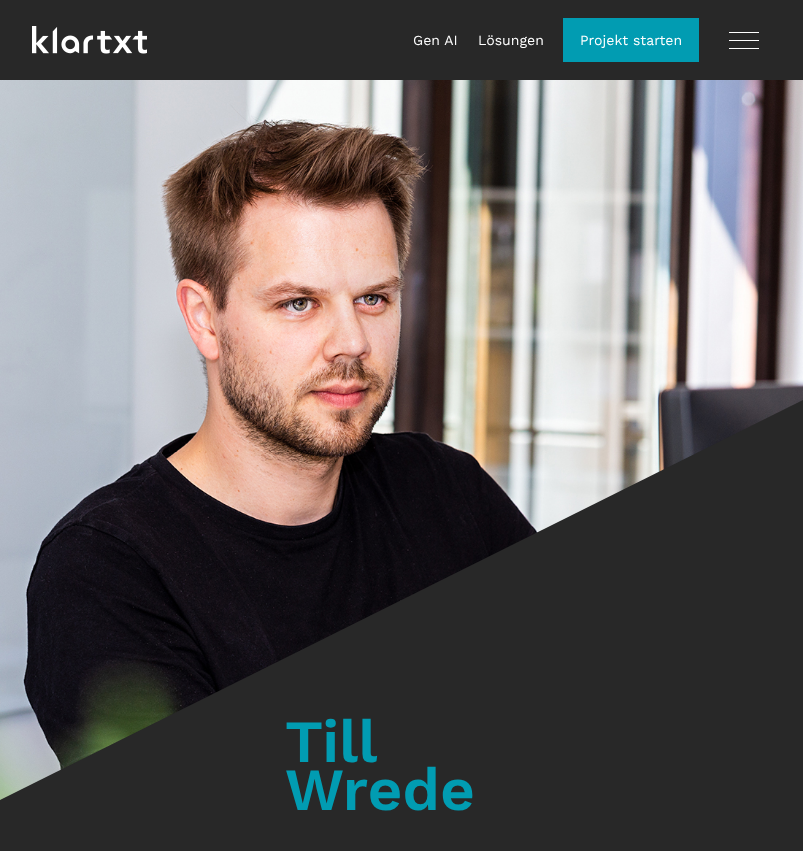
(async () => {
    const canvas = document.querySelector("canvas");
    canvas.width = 803;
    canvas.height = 851;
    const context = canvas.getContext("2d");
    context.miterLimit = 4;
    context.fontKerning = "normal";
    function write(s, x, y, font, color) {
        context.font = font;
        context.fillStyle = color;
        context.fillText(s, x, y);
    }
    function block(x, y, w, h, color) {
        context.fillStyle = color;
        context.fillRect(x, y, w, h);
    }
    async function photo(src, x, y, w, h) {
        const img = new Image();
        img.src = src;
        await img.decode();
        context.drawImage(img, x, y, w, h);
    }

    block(0, 0, 803, 851, "rgb(40, 40, 40)");
    await photo("media/1.png", 32, 26, 115, 28);
    write("Gen AI", 413, 45, "14px Work Sans", "rgb(255, 255, 255)");
    write("Lösungen", 478, 45, "14px Work Sans", "rgb(255, 255, 255)");
    block(563, 18, 136, 44, "rgb(1, 156, 178)");
    write("Projekt starten", 580, 45, "14px Work Sans", "rgb(255, 255, 255)");
    block(729, 40, 30, 1, "rgb(255, 255, 255)");
    block(729, 32, 30, 1, "rgb(255, 255, 255)");
    block(729, 48, 30, 1, "rgb(255, 255, 255)");
    await photo("media/2.png", 0, 80, 803, 720);
    context.fillStyle = "rgb(40, 40, 40)";
    context.beginPath();
    context.moveTo(803, 400);
    context.lineTo(0, 800);
    context.lineTo(803, 800);
    context.closePath();
    context.fill();
    write("Till", 285, 762, "600 60px Work Sans", "rgb(1, 156, 178)");
    write("Wrede", 285, 810, "600 60px Work Sans", "rgb(1, 156, 178)");
})();
